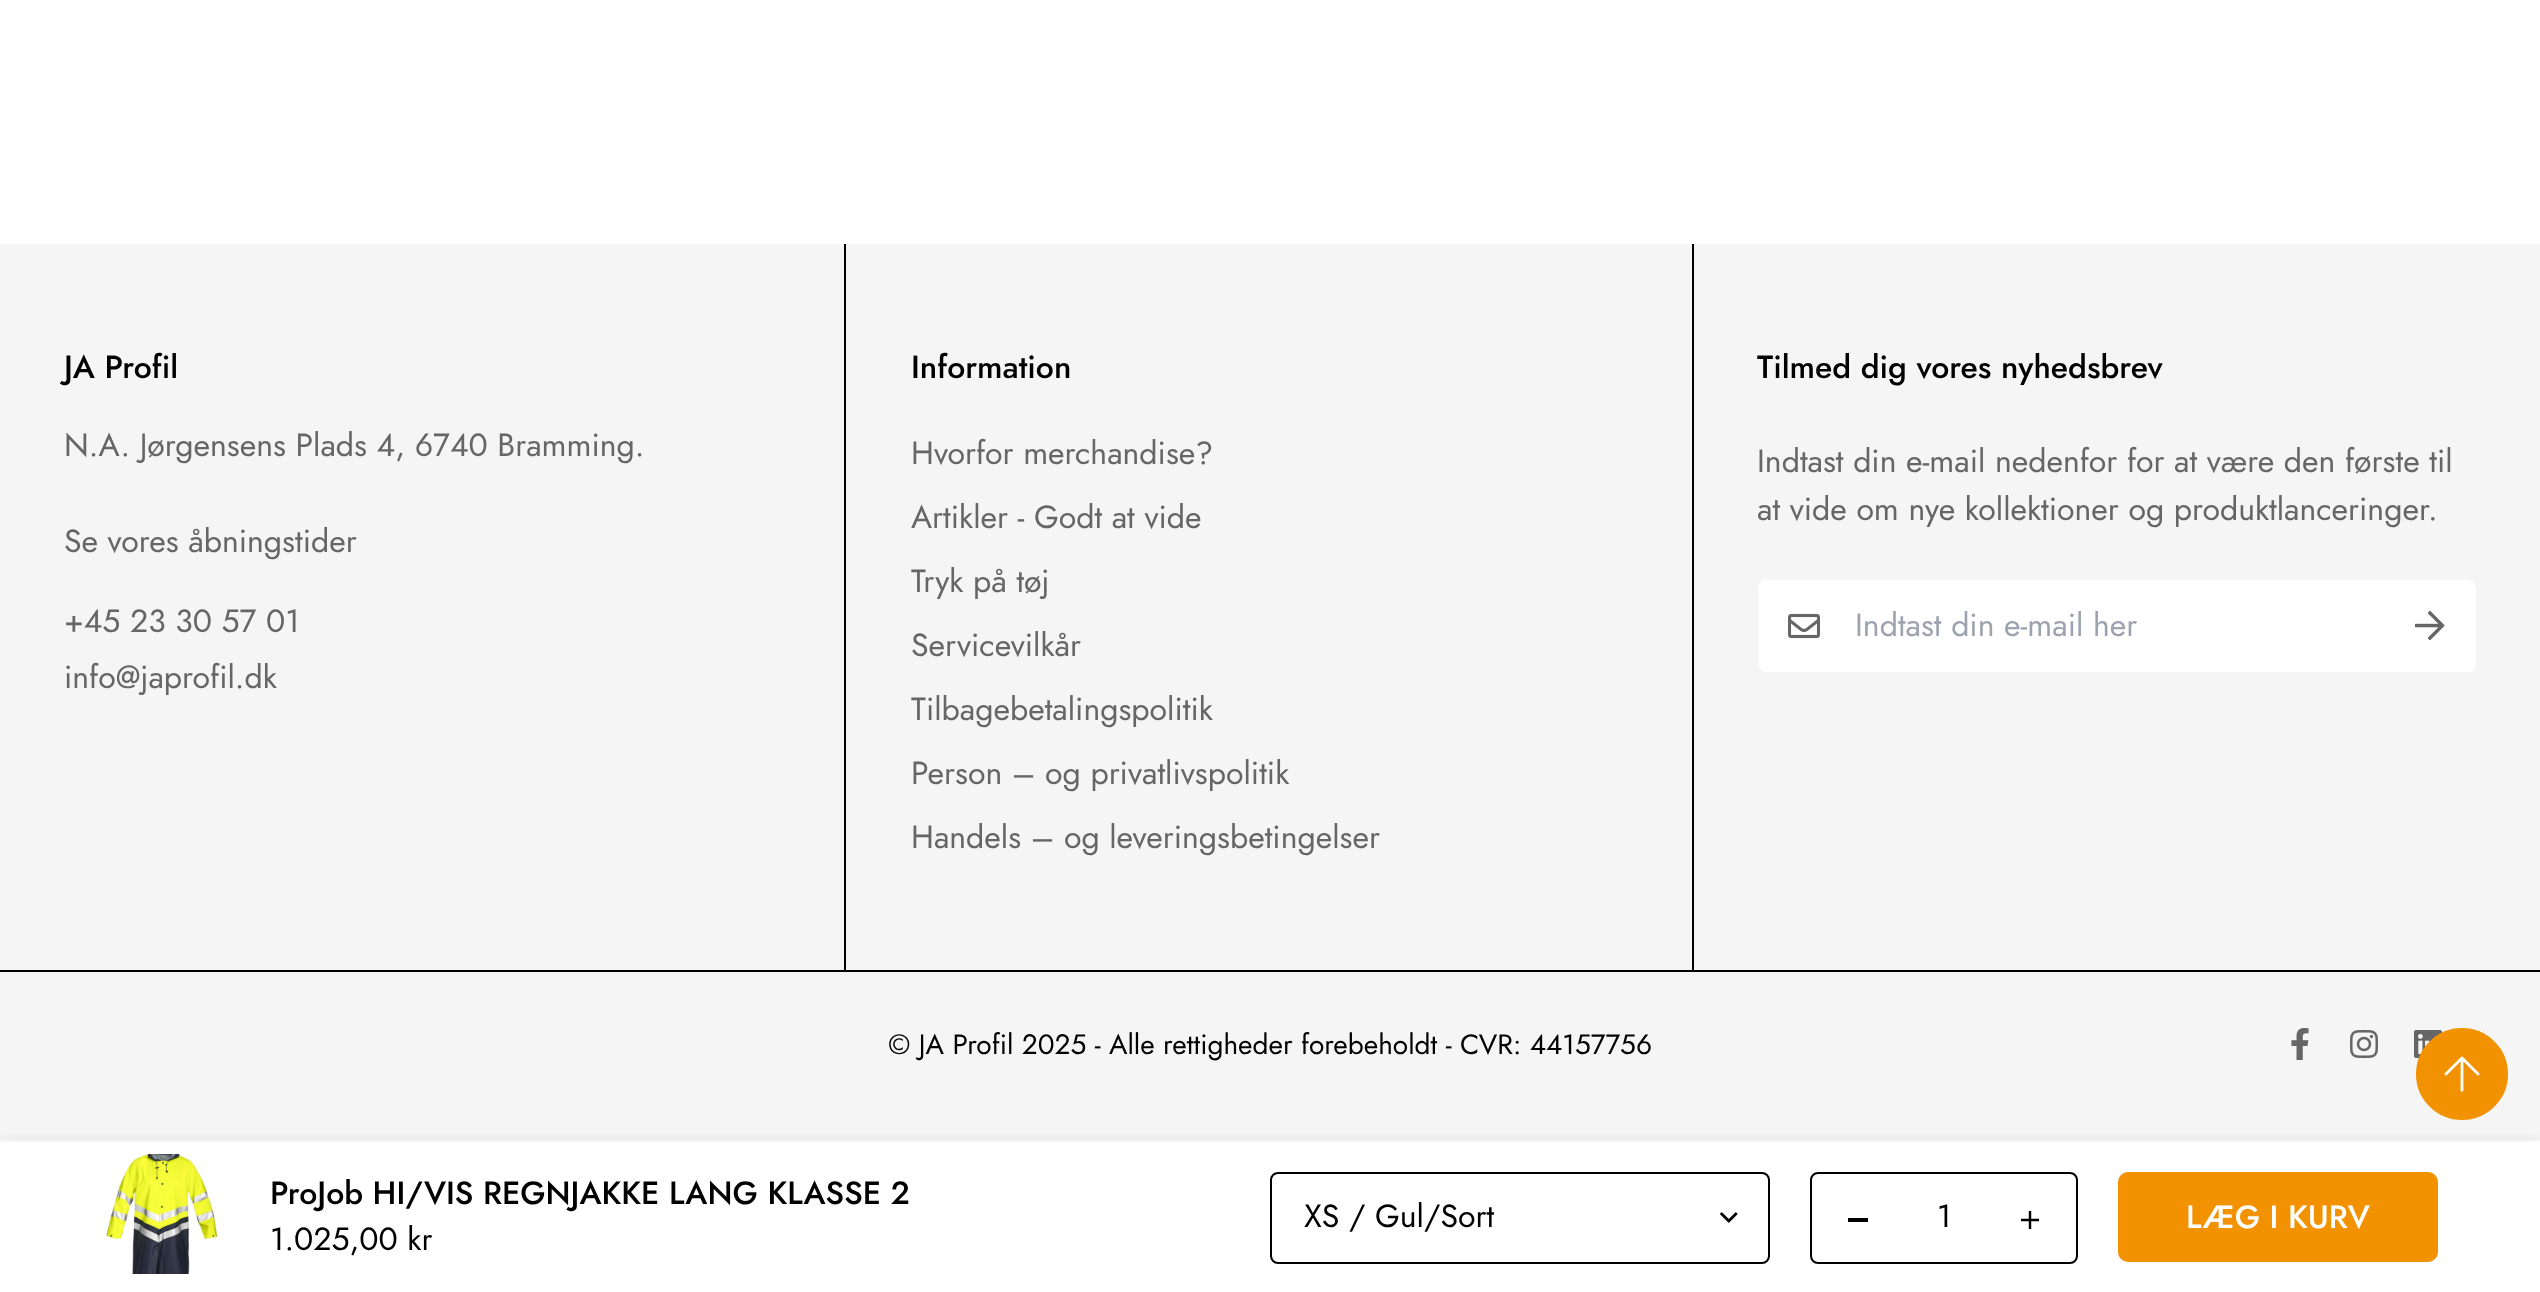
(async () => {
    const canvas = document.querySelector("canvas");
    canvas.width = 2540;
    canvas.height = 1292;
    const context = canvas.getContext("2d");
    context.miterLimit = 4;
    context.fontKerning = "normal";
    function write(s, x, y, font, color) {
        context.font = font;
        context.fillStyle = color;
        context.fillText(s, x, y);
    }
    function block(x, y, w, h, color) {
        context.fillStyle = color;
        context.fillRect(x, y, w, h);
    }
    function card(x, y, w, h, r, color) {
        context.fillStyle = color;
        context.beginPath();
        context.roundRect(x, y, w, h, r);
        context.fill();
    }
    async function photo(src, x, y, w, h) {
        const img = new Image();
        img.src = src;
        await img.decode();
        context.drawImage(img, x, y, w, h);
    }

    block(0, 0, 2540, 1292, "rgb(255, 255, 255)");
    block(0, 244, 2540, 896, "rgb(245, 245, 245)");
    block(0, 970, 2540, 2, "rgb(0, 0, 0)");
    block(844, 244, 2, 726, "rgb(0, 0, 0)");
    write("JA Profil", 64, 378, "500 32px Jost", "rgb(0, 0, 0)");
    write("N.A. Jørgensens Plads 4, 6740 Bramming.", 64, 456, "32px Jost", "rgb(102, 102, 102)");
    write("Se vores åbningstider", 64, 552, "32px Jost", "rgb(102, 102, 102)");
    write("+45 23 30 57 01", 64, 632, "32px Jost", "rgb(102, 102, 102)");
    write("info@japrofil.dk", 64, 688, "32px Jost", "rgb(102, 102, 102)");
    block(1692, 244, 2, 726, "rgb(0, 0, 0)");
    write("Information", 911, 378, "500 32px Jost", "rgb(0, 0, 0)");
    write("Hvorfor merchandise?", 911, 464, "32px Jost", "rgb(102, 102, 102)");
    write("Artikler - Godt at vide", 911, 528, "32px Jost", "rgb(102, 102, 102)");
    write("Tryk på tøj", 911, 592, "32px Jost", "rgb(102, 102, 102)");
    write("Servicevilkår", 911, 656, "32px Jost", "rgb(102, 102, 102)");
    write("Tilbagebetalingspolitik", 911, 720, "32px Jost", "rgb(102, 102, 102)");
    write("Person – og privatlivspolitik", 911, 784, "32px Jost", "rgb(102, 102, 102)");
    write("Handels – og leveringsbetingelser", 911, 848, "32px Jost", "rgb(102, 102, 102)");
    write("Tilmed dig vores nyhedsbrev", 1757, 378, "500 32px Jost", "rgb(0, 0, 0)");
    write("Indtast din e-mail nedenfor for at være den første til", 1757, 472, "32px Jost", "rgb(102, 102, 102)");
    write("at vide om nye kollektioner og produktlanceringer.", 1757, 520, "32px Jost", "rgb(102, 102, 102)");
    card(1758, 580, 718, 92, 8, "rgb(255, 255, 255)");
    await photo("media/1.png", 1788, 613, 32, 26);
    write("Indtast din e-mail her", 1855, 636, "32px Jost", "rgb(156, 163, 175)");
    await photo("media/2.png", 2414, 610, 31, 31);
    write("© JA Profil 2025 - Alle rettigheder forebeholdt - CVR: 44157756", 888, 1054, "28px Jost", "rgb(0, 0, 0)");
    await photo("media/3.png", 2291, 1028, 18, 32);
    await photo("media/4.png", 2350, 1030, 28, 28);
    await photo("media/5.png", 2414, 1030, 28, 28);
    context.save();
    context.beginPath();
    context.rect(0, 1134, 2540, 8);
    context.clip();
    context.fillStyle = "rgba(0, 0, 0, 0.09)";
    context.filter = "blur(10px)";
    context.beginPath();
    context.rect(0, 1142, 2540, 150);
    context.fill();
    context.filter = "none";
    context.restore();
    context.fillStyle = "rgb(243, 146, 0)";
    context.beginPath();
    context.arc(2462, 1074, 45, 0, Math.PI * 2);
    context.fill();
    context.strokeStyle = "rgb(243, 146, 0)";
    context.lineWidth = 2;
    context.stroke();
    await photo("media/6.png", 2444, 1056, 36, 36);
    await photo("media/7.png", 106, 1154, 112, 120);
    write("ProJob HI/VIS REGNJAKKE LANG KLASSE 2", 270, 1204, "500 32px Jost", "rgb(0, 0, 0)");
    write("1.025,00 kr", 270, 1250, "32px Jost", "rgb(0, 0, 0)");
    await photo("media/8.png", 1720, 1212, 18, 11);
    context.beginPath();
    context.roundRect(1271, 1173, 498, 90, 7);
    context.strokeStyle = "rgb(0, 0, 0)";
    context.stroke();
    write("XS / Gul/Sort", 1304, 1227, "32px Jost", "rgb(0, 0, 0)");
    context.beginPath();
    context.roundRect(1811, 1173, 266, 90, 7);
    context.stroke();
    block(1848, 1218, 20, 4, "rgb(0, 0, 0)");
    write("1", 1937, 1227, "32px Jost", "rgb(0, 0, 0)");
    await photo("media/9.png", 2020, 1210, 20, 20);
    context.fillStyle = "rgb(243, 146, 0)";
    context.beginPath();
    context.roundRect(2119, 1173, 318, 88, 9);
    context.fill();
    context.strokeStyle = "rgb(243, 146, 0)";
    context.stroke();
    write("LÆG I KURV", 2186, 1228, "500 32px Jost", "rgb(255, 255, 255)");
})();
